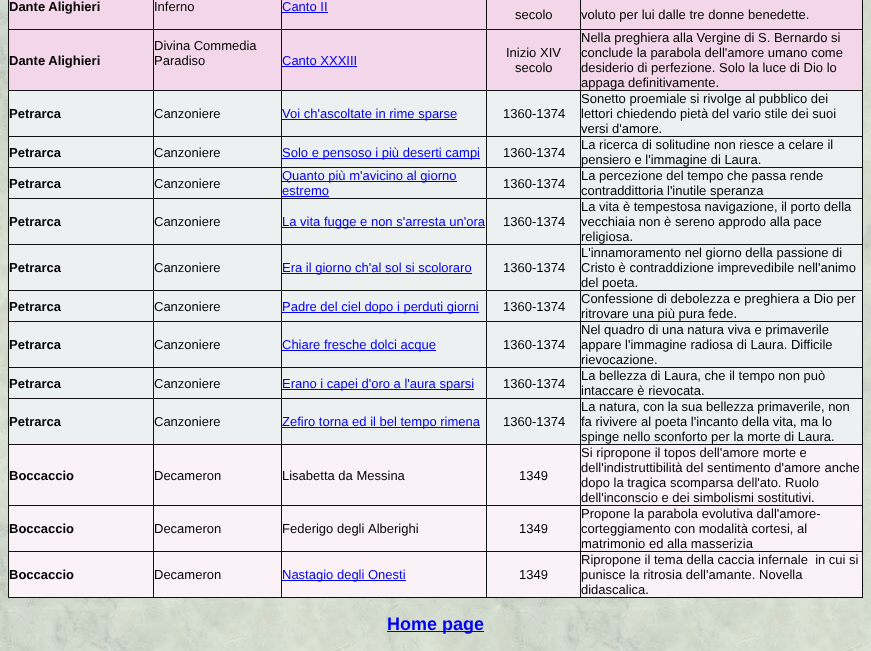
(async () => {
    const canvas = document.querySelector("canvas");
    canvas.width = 871;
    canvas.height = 651;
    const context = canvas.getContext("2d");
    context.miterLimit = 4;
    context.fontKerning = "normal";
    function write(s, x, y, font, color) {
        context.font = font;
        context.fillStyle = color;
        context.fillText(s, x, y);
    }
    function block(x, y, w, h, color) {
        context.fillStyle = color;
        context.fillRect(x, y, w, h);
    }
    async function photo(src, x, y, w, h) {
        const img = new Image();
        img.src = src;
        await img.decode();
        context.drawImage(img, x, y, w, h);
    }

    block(0, 0, 871, 651, "rgb(255, 255, 255)");
    await photo("media/1.png", 0, 0, 871, 651);
    block(862, 0, 1, 598, "rgb(17, 17, 17)");
    block(8, 597, 855, 1, "rgb(17, 17, 17)");
    block(8, 0, 1, 598, "rgb(17, 17, 17)");
    block(9, 0, 144, 29, "rgb(243, 214, 233)");
    write("Dante Alighieri", 9, 11, "bold 13px Liberation Sans", "rgb(0, 0, 0)");
    block(154, 0, 127, 29, "rgb(243, 214, 233)");
    block(580, 29, 283, 1, "rgb(17, 17, 17)");
    block(580, 90, 283, 1, "rgb(17, 17, 17)");
    block(580, 136, 283, 1, "rgb(17, 17, 17)");
    block(580, 167, 283, 1, "rgb(17, 17, 17)");
    block(580, 198, 283, 1, "rgb(17, 17, 17)");
    block(580, 244, 283, 1, "rgb(17, 17, 17)");
    block(580, 290, 283, 1, "rgb(17, 17, 17)");
    block(580, 321, 283, 1, "rgb(17, 17, 17)");
    block(580, 367, 283, 1, "rgb(17, 17, 17)");
    block(580, 398, 283, 1, "rgb(17, 17, 17)");
    block(580, 444, 283, 1, "rgb(17, 17, 17)");
    block(580, 505, 283, 1, "rgb(17, 17, 17)");
    block(580, 551, 283, 1, "rgb(17, 17, 17)");
    block(580, 551, 1, 47, "rgb(17, 17, 17)");
    block(486, 551, 95, 1, "rgb(17, 17, 17)");
    block(580, 505, 1, 47, "rgb(17, 17, 17)");
    block(486, 505, 95, 1, "rgb(17, 17, 17)");
    block(580, 444, 1, 62, "rgb(17, 17, 17)");
    block(486, 444, 95, 1, "rgb(17, 17, 17)");
    block(580, 398, 1, 47, "rgb(17, 17, 17)");
    block(486, 398, 95, 1, "rgb(17, 17, 17)");
    block(580, 367, 1, 32, "rgb(17, 17, 17)");
    block(486, 367, 95, 1, "rgb(17, 17, 17)");
    block(580, 321, 1, 47, "rgb(17, 17, 17)");
    block(486, 321, 95, 1, "rgb(17, 17, 17)");
    block(580, 290, 1, 32, "rgb(17, 17, 17)");
    block(486, 290, 95, 1, "rgb(17, 17, 17)");
    block(580, 244, 1, 47, "rgb(17, 17, 17)");
    block(486, 244, 95, 1, "rgb(17, 17, 17)");
    block(580, 198, 1, 47, "rgb(17, 17, 17)");
    block(486, 198, 95, 1, "rgb(17, 17, 17)");
    block(580, 167, 1, 32, "rgb(17, 17, 17)");
    block(486, 167, 95, 1, "rgb(17, 17, 17)");
    block(580, 136, 1, 32, "rgb(17, 17, 17)");
    block(486, 136, 95, 1, "rgb(17, 17, 17)");
    block(580, 90, 1, 47, "rgb(17, 17, 17)");
    block(486, 90, 95, 1, "rgb(17, 17, 17)");
    block(580, 29, 1, 62, "rgb(17, 17, 17)");
    block(486, 29, 95, 1, "rgb(17, 17, 17)");
    block(486, 551, 1, 47, "rgb(17, 17, 17)");
    block(281, 551, 206, 1, "rgb(17, 17, 17)");
    block(486, 505, 1, 47, "rgb(17, 17, 17)");
    block(281, 505, 206, 1, "rgb(17, 17, 17)");
    block(486, 444, 1, 62, "rgb(17, 17, 17)");
    block(281, 444, 206, 1, "rgb(17, 17, 17)");
    block(486, 398, 1, 47, "rgb(17, 17, 17)");
    block(281, 398, 206, 1, "rgb(17, 17, 17)");
    block(486, 367, 1, 32, "rgb(17, 17, 17)");
    block(281, 367, 206, 1, "rgb(17, 17, 17)");
    block(486, 321, 1, 47, "rgb(17, 17, 17)");
    block(281, 321, 206, 1, "rgb(17, 17, 17)");
    block(486, 290, 1, 32, "rgb(17, 17, 17)");
    block(281, 290, 206, 1, "rgb(17, 17, 17)");
    block(486, 244, 1, 47, "rgb(17, 17, 17)");
    block(281, 244, 206, 1, "rgb(17, 17, 17)");
    block(486, 198, 1, 47, "rgb(17, 17, 17)");
    block(281, 198, 206, 1, "rgb(17, 17, 17)");
    block(486, 167, 1, 32, "rgb(17, 17, 17)");
    block(281, 167, 206, 1, "rgb(17, 17, 17)");
    block(486, 136, 1, 32, "rgb(17, 17, 17)");
    block(281, 136, 206, 1, "rgb(17, 17, 17)");
    block(486, 90, 1, 47, "rgb(17, 17, 17)");
    block(281, 90, 206, 1, "rgb(17, 17, 17)");
    block(486, 29, 1, 62, "rgb(17, 17, 17)");
    block(281, 29, 206, 1, "rgb(17, 17, 17)");
    block(281, 551, 1, 47, "rgb(17, 17, 17)");
    block(153, 551, 129, 1, "rgb(17, 17, 17)");
    block(281, 505, 1, 47, "rgb(17, 17, 17)");
    block(153, 505, 129, 1, "rgb(17, 17, 17)");
    block(281, 444, 1, 62, "rgb(17, 17, 17)");
    block(153, 444, 129, 1, "rgb(17, 17, 17)");
    block(281, 398, 1, 47, "rgb(17, 17, 17)");
    block(153, 398, 129, 1, "rgb(17, 17, 17)");
    block(281, 367, 1, 32, "rgb(17, 17, 17)");
    block(153, 367, 129, 1, "rgb(17, 17, 17)");
    block(281, 321, 1, 47, "rgb(17, 17, 17)");
    block(153, 321, 129, 1, "rgb(17, 17, 17)");
    block(281, 290, 1, 32, "rgb(17, 17, 17)");
    block(153, 290, 129, 1, "rgb(17, 17, 17)");
    block(281, 244, 1, 47, "rgb(17, 17, 17)");
    block(153, 244, 129, 1, "rgb(17, 17, 17)");
    block(281, 198, 1, 47, "rgb(17, 17, 17)");
    block(153, 198, 129, 1, "rgb(17, 17, 17)");
    block(281, 167, 1, 32, "rgb(17, 17, 17)");
    block(153, 167, 129, 1, "rgb(17, 17, 17)");
    block(281, 136, 1, 32, "rgb(17, 17, 17)");
    block(153, 136, 129, 1, "rgb(17, 17, 17)");
    block(281, 90, 1, 47, "rgb(17, 17, 17)");
    block(153, 90, 129, 1, "rgb(17, 17, 17)");
    block(281, 29, 1, 62, "rgb(17, 17, 17)");
    block(153, 29, 129, 1, "rgb(17, 17, 17)");
    block(153, 551, 1, 47, "rgb(17, 17, 17)");
    block(8, 551, 146, 1, "rgb(17, 17, 17)");
    block(153, 505, 1, 47, "rgb(17, 17, 17)");
    block(8, 505, 146, 1, "rgb(17, 17, 17)");
    block(153, 444, 1, 62, "rgb(17, 17, 17)");
    block(8, 444, 146, 1, "rgb(17, 17, 17)");
    block(153, 398, 1, 47, "rgb(17, 17, 17)");
    block(8, 398, 146, 1, "rgb(17, 17, 17)");
    block(153, 367, 1, 32, "rgb(17, 17, 17)");
    block(8, 367, 146, 1, "rgb(17, 17, 17)");
    block(153, 321, 1, 47, "rgb(17, 17, 17)");
    block(8, 321, 146, 1, "rgb(17, 17, 17)");
    block(153, 290, 1, 32, "rgb(17, 17, 17)");
    block(8, 290, 146, 1, "rgb(17, 17, 17)");
    block(153, 244, 1, 47, "rgb(17, 17, 17)");
    block(8, 244, 146, 1, "rgb(17, 17, 17)");
    block(153, 198, 1, 47, "rgb(17, 17, 17)");
    block(8, 198, 146, 1, "rgb(17, 17, 17)");
    block(153, 167, 1, 32, "rgb(17, 17, 17)");
    block(8, 167, 146, 1, "rgb(17, 17, 17)");
    block(153, 136, 1, 32, "rgb(17, 17, 17)");
    block(8, 136, 146, 1, "rgb(17, 17, 17)");
    block(153, 90, 1, 47, "rgb(17, 17, 17)");
    block(8, 90, 146, 1, "rgb(17, 17, 17)");
    block(153, 29, 1, 62, "rgb(17, 17, 17)");
    block(8, 29, 146, 1, "rgb(17, 17, 17)");
    block(153, 0, 1, 30, "rgb(17, 17, 17)");
    write("Inferno", 154, 11, "13px Liberation Sans", "rgb(0, 0, 0)");
    block(282, 0, 204, 29, "rgb(243, 214, 233)");
    block(281, 0, 1, 30, "rgb(17, 17, 17)");
    write("Canto II", 282, 11, "13px Liberation Sans", "rgb(0, 0, 238)");
    block(282, 12, 46, 1, "rgb(0, 0, 238)");
    block(487, 0, 93, 29, "rgb(243, 214, 233)");
    block(486, 0, 1, 30, "rgb(17, 17, 17)");
    write("secolo", 515, 19, "13px Liberation Sans", "rgb(0, 0, 0)");
    block(581, 0, 281, 29, "rgb(243, 214, 233)");
    block(580, 0, 1, 30, "rgb(17, 17, 17)");
    write("voluto per lui dalle tre donne benedette.", 581, 19, "13px Liberation Sans", "rgb(0, 0, 0)");
    block(9, 30, 144, 60, "rgb(243, 214, 233)");
    write("Dante Alighieri", 9, 65, "bold 13px Liberation Sans", "rgb(0, 0, 0)");
    block(154, 30, 127, 60, "rgb(243, 214, 233)");
    write("Divina Commedia", 154, 50, "13px Liberation Sans", "rgb(0, 0, 0)");
    write("Paradiso", 154, 65, "13px Liberation Sans", "rgb(0, 0, 0)");
    block(282, 30, 204, 60, "rgb(243, 214, 233)");
    write("Canto XXXIII", 282, 65, "13px Liberation Sans", "rgb(0, 0, 238)");
    block(282, 66, 75, 1, "rgb(0, 0, 238)");
    block(487, 30, 93, 60, "rgb(243, 214, 233)");
    write("Inizio XIV", 506, 57, "13px Liberation Sans", "rgb(0, 0, 0)");
    write("secolo", 515, 72, "13px Liberation Sans", "rgb(0, 0, 0)");
    block(581, 30, 281, 60, "rgb(243, 214, 233)");
    write("Nella preghiera alla Vergine di S. Bernardo si", 581, 42, "13px Liberation Sans", "rgb(0, 0, 0)");
    write("conclude la parabola dell'amore umano come", 581, 57, "13px Liberation Sans", "rgb(0, 0, 0)");
    write("desiderio di perfezione. Solo la luce di Dio lo", 581, 72, "13px Liberation Sans", "rgb(0, 0, 0)");
    write("appaga definitivamente.", 581, 87, "13px Liberation Sans", "rgb(0, 0, 0)");
    block(9, 91, 144, 45, "rgb(237, 240, 241)");
    write("Petrarca", 9, 118, "bold 13px Liberation Sans", "rgb(0, 0, 0)");
    block(154, 91, 127, 45, "rgb(237, 240, 241)");
    write("Canzoniere", 154, 118, "13px Liberation Sans", "rgb(0, 0, 0)");
    block(282, 91, 204, 45, "rgb(237, 240, 241)");
    block(282, 119, 175, 1, "rgb(0, 0, 238)");
    write("Voi ch'ascoltate in rime sparse", 282, 118, "13px Liberation Sans", "rgb(0, 0, 238)");
    block(487, 91, 93, 45, "rgb(237, 240, 241)");
    write("1360-1374", 503, 118, "13px Liberation Sans", "rgb(0, 0, 0)");
    block(581, 91, 281, 45, "rgb(237, 240, 241)");
    write("Sonetto proemiale si rivolge al pubblico dei", 581, 103, "13px Liberation Sans", "rgb(0, 0, 0)");
    write("lettori chiedendo pietà del vario stile dei suoi", 581, 118, "13px Liberation Sans", "rgb(0, 0, 0)");
    write("versi d'amore.", 581, 133, "13px Liberation Sans", "rgb(0, 0, 0)");
    block(9, 137, 144, 30, "rgb(237, 240, 241)");
    write("Petrarca", 9, 157, "bold 13px Liberation Sans", "rgb(0, 0, 0)");
    block(154, 137, 127, 30, "rgb(237, 240, 241)");
    write("Canzoniere", 154, 157, "13px Liberation Sans", "rgb(0, 0, 0)");
    block(282, 137, 204, 30, "rgb(237, 240, 241)");
    block(282, 158, 198, 1, "rgb(0, 0, 238)");
    write("Solo e pensoso i più deserti campi", 282, 157, "13px Liberation Sans", "rgb(0, 0, 238)");
    block(487, 137, 93, 30, "rgb(237, 240, 241)");
    write("1360-1374", 503, 157, "13px Liberation Sans", "rgb(0, 0, 0)");
    block(581, 137, 281, 30, "rgb(237, 240, 241)");
    write("La ricerca di solitudine non riesce a celare il", 581, 149, "13px Liberation Sans", "rgb(0, 0, 0)");
    write("pensiero e l'immagine di Laura.", 581, 164, "13px Liberation Sans", "rgb(0, 0, 0)");
    block(9, 168, 144, 30, "rgb(237, 240, 241)");
    write("Petrarca", 9, 188, "bold 13px Liberation Sans", "rgb(0, 0, 0)");
    block(154, 168, 127, 30, "rgb(237, 240, 241)");
    write("Canzoniere", 154, 188, "13px Liberation Sans", "rgb(0, 0, 0)");
    block(282, 168, 204, 30, "rgb(237, 240, 241)");
    block(282, 181, 175, 1, "rgb(0, 0, 238)");
    write("Quanto più m'avicino al giorno", 282, 180, "13px Liberation Sans", "rgb(0, 0, 238)");
    write("estremo", 282, 195, "13px Liberation Sans", "rgb(0, 0, 238)");
    block(282, 196, 47, 1, "rgb(0, 0, 238)");
    block(487, 168, 93, 30, "rgb(237, 240, 241)");
    write("1360-1374", 503, 188, "13px Liberation Sans", "rgb(0, 0, 0)");
    block(581, 168, 281, 30, "rgb(237, 240, 241)");
    write("La percezione del tempo che passa rende", 581, 180, "13px Liberation Sans", "rgb(0, 0, 0)");
    write("contraddittoria l'inutile speranza", 581, 195, "13px Liberation Sans", "rgb(0, 0, 0)");
    block(9, 199, 144, 45, "rgb(237, 240, 241)");
    write("Petrarca", 9, 226, "bold 13px Liberation Sans", "rgb(0, 0, 0)");
    block(154, 199, 127, 45, "rgb(237, 240, 241)");
    write("Canzoniere", 154, 226, "13px Liberation Sans", "rgb(0, 0, 0)");
    block(282, 199, 204, 45, "rgb(237, 240, 241)");
    block(282, 227, 203, 1, "rgb(0, 0, 238)");
    write("La vita fugge e non s'arresta un'ora", 282, 226, "13px Liberation Sans", "rgb(0, 0, 238)");
    block(487, 199, 93, 45, "rgb(237, 240, 241)");
    write("1360-1374", 503, 226, "13px Liberation Sans", "rgb(0, 0, 0)");
    block(581, 199, 281, 45, "rgb(237, 240, 241)");
    write("La vita è tempestosa navigazione, il porto della", 581, 211, "13px Liberation Sans", "rgb(0, 0, 0)");
    write("vecchiaia non è sereno approdo alla pace", 581, 226, "13px Liberation Sans", "rgb(0, 0, 0)");
    write("religiosa.", 581, 241, "13px Liberation Sans", "rgb(0, 0, 0)");
    block(9, 245, 144, 45, "rgb(237, 240, 241)");
    write("Petrarca", 9, 272, "bold 13px Liberation Sans", "rgb(0, 0, 0)");
    block(154, 245, 127, 45, "rgb(237, 240, 241)");
    write("Canzoniere", 154, 272, "13px Liberation Sans", "rgb(0, 0, 0)");
    block(282, 245, 204, 45, "rgb(237, 240, 241)");
    block(282, 273, 190, 1, "rgb(0, 0, 238)");
    write("Era il giorno ch'al sol si scoloraro", 282, 272, "13px Liberation Sans", "rgb(0, 0, 238)");
    block(487, 245, 93, 45, "rgb(237, 240, 241)");
    write("1360-1374", 503, 272, "13px Liberation Sans", "rgb(0, 0, 0)");
    block(581, 245, 281, 45, "rgb(237, 240, 241)");
    write("L'innamoramento nel giorno della passione di", 581, 257, "13px Liberation Sans", "rgb(0, 0, 0)");
    write("Cristo è contraddizione imprevedibile nell'animo", 581, 272, "13px Liberation Sans", "rgb(0, 0, 0)");
    write("del poeta.", 581, 287, "13px Liberation Sans", "rgb(0, 0, 0)");
    block(9, 291, 144, 30, "rgb(237, 240, 241)");
    write("Petrarca", 9, 311, "bold 13px Liberation Sans", "rgb(0, 0, 0)");
    block(154, 291, 127, 30, "rgb(237, 240, 241)");
    write("Canzoniere", 154, 311, "13px Liberation Sans", "rgb(0, 0, 0)");
    block(282, 291, 204, 30, "rgb(237, 240, 241)");
    block(282, 312, 197, 1, "rgb(0, 0, 238)");
    write("Padre del ciel dopo i perduti giorni", 282, 311, "13px Liberation Sans", "rgb(0, 0, 238)");
    block(487, 291, 93, 30, "rgb(237, 240, 241)");
    write("1360-1374", 503, 311, "13px Liberation Sans", "rgb(0, 0, 0)");
    block(581, 291, 281, 30, "rgb(237, 240, 241)");
    write("Confessione di debolezza e preghiera a Dio per", 581, 303, "13px Liberation Sans", "rgb(0, 0, 0)");
    write("ritrovare una più pura fede.", 581, 318, "13px Liberation Sans", "rgb(0, 0, 0)");
    block(9, 322, 144, 45, "rgb(237, 240, 241)");
    write("Petrarca", 9, 349, "bold 13px Liberation Sans", "rgb(0, 0, 0)");
    block(154, 322, 127, 45, "rgb(237, 240, 241)");
    write("Canzoniere", 154, 349, "13px Liberation Sans", "rgb(0, 0, 0)");
    block(282, 322, 204, 45, "rgb(237, 240, 241)");
    block(282, 350, 154, 1, "rgb(0, 0, 238)");
    write("Chiare fresche dolci acque", 282, 349, "13px Liberation Sans", "rgb(0, 0, 238)");
    block(487, 322, 93, 45, "rgb(237, 240, 241)");
    write("1360-1374", 503, 349, "13px Liberation Sans", "rgb(0, 0, 0)");
    block(581, 322, 281, 45, "rgb(237, 240, 241)");
    write("Nel quadro di una natura viva e primaverile", 581, 334, "13px Liberation Sans", "rgb(0, 0, 0)");
    write("appare l'immagine radiosa di Laura. Difficile", 581, 349, "13px Liberation Sans", "rgb(0, 0, 0)");
    write("rievocazione.", 581, 364, "13px Liberation Sans", "rgb(0, 0, 0)");
    block(9, 368, 144, 30, "rgb(237, 240, 241)");
    write("Petrarca", 9, 388, "bold 13px Liberation Sans", "rgb(0, 0, 0)");
    block(154, 368, 127, 30, "rgb(237, 240, 241)");
    write("Canzoniere", 154, 388, "13px Liberation Sans", "rgb(0, 0, 0)");
    block(282, 368, 204, 30, "rgb(237, 240, 241)");
    block(282, 389, 192, 1, "rgb(0, 0, 238)");
    write("Erano i capei d'oro a l'aura sparsi", 282, 388, "13px Liberation Sans", "rgb(0, 0, 238)");
    block(487, 368, 93, 30, "rgb(237, 240, 241)");
    write("1360-1374", 503, 388, "13px Liberation Sans", "rgb(0, 0, 0)");
    block(581, 368, 281, 30, "rgb(237, 240, 241)");
    write("La bellezza di Laura, che il tempo non può", 581, 380, "13px Liberation Sans", "rgb(0, 0, 0)");
    write("intaccare è rievocata.", 581, 395, "13px Liberation Sans", "rgb(0, 0, 0)");
    block(9, 399, 144, 45, "rgb(237, 240, 241)");
    write("Petrarca", 9, 426, "bold 13px Liberation Sans", "rgb(0, 0, 0)");
    block(154, 399, 127, 45, "rgb(237, 240, 241)");
    write("Canzoniere", 154, 426, "13px Liberation Sans", "rgb(0, 0, 0)");
    block(282, 399, 204, 45, "rgb(237, 240, 241)");
    block(282, 427, 198, 1, "rgb(0, 0, 238)");
    write("Zefiro torna ed il bel tempo rimena", 282, 426, "13px Liberation Sans", "rgb(0, 0, 238)");
    block(487, 399, 93, 45, "rgb(237, 240, 241)");
    write("1360-1374", 503, 426, "13px Liberation Sans", "rgb(0, 0, 0)");
    block(581, 399, 281, 45, "rgb(237, 240, 241)");
    write("La natura, con la sua bellezza primaverile, non", 581, 411, "13px Liberation Sans", "rgb(0, 0, 0)");
    write("fa rivivere al poeta l'incanto della vita, ma lo", 581, 426, "13px Liberation Sans", "rgb(0, 0, 0)");
    write("spinge nello sconforto per la morte di Laura.", 581, 441, "13px Liberation Sans", "rgb(0, 0, 0)");
    block(9, 445, 144, 60, "rgb(251, 242, 248)");
    write("Boccaccio", 9, 480, "bold 13px Liberation Sans", "rgb(0, 0, 0)");
    block(154, 445, 127, 60, "rgb(251, 242, 248)");
    write("Decameron", 154, 480, "13px Liberation Sans", "rgb(0, 0, 0)");
    block(282, 445, 204, 60, "rgb(251, 242, 248)");
    write("Lisabetta da Messina", 282, 480, "13px Liberation Sans", "rgb(0, 0, 0)");
    block(487, 445, 93, 60, "rgb(251, 242, 248)");
    write("1349", 519, 480, "13px Liberation Sans", "rgb(0, 0, 0)");
    block(581, 445, 281, 60, "rgb(251, 242, 248)");
    write("Si ripropone il topos dell'amore morte e", 581, 457, "13px Liberation Sans", "rgb(0, 0, 0)");
    write("dell'indistruttibilità del sentimento d'amore anche", 581, 472, "13px Liberation Sans", "rgb(0, 0, 0)");
    write("dopo la tragica scomparsa dell'ato. Ruolo", 581, 487, "13px Liberation Sans", "rgb(0, 0, 0)");
    write("dell'inconscio e dei simbolismi sostitutivi.", 581, 502, "13px Liberation Sans", "rgb(0, 0, 0)");
    block(9, 506, 144, 45, "rgb(251, 242, 248)");
    write("Boccaccio", 9, 533, "bold 13px Liberation Sans", "rgb(0, 0, 0)");
    block(154, 506, 127, 45, "rgb(251, 242, 248)");
    write("Decameron", 154, 533, "13px Liberation Sans", "rgb(0, 0, 0)");
    block(282, 506, 204, 45, "rgb(251, 242, 248)");
    write("Federigo degli", 282, 533, "13px Liberation Sans", "rgb(0, 0, 0)");
    write("Alberighi", 368, 533, "13px Liberation Sans", "rgb(0, 0, 0)");
    block(487, 506, 93, 45, "rgb(251, 242, 248)");
    write("1349", 519, 533, "13px Liberation Sans", "rgb(0, 0, 0)");
    block(581, 506, 281, 45, "rgb(251, 242, 248)");
    write("Propone la parabola evolutiva dall'amore-", 581, 518, "13px Liberation Sans", "rgb(0, 0, 0)");
    write("corteggiamento con modalità cortesi, al", 581, 533, "13px Liberation Sans", "rgb(0, 0, 0)");
    write("matrimonio ed alla masserizia", 581, 548, "13px Liberation Sans", "rgb(0, 0, 0)");
    block(9, 552, 144, 45, "rgb(251, 242, 248)");
    write("Boccaccio", 9, 579, "bold 13px Liberation Sans", "rgb(0, 0, 0)");
    block(154, 552, 127, 45, "rgb(251, 242, 248)");
    write("Decameron", 154, 579, "13px Liberation Sans", "rgb(0, 0, 0)");
    block(282, 552, 204, 45, "rgb(251, 242, 248)");
    block(282, 580, 124, 1, "rgb(0, 0, 238)");
    write("Nastagio degli Onesti", 282, 579, "13px Liberation Sans", "rgb(0, 0, 238)");
    block(487, 552, 93, 45, "rgb(251, 242, 248)");
    write("1349", 519, 579, "13px Liberation Sans", "rgb(0, 0, 0)");
    block(581, 552, 281, 45, "rgb(251, 242, 248)");
    write("Ripropone il tema della caccia infernale  in cui si", 581, 564, "13px Liberation Sans", "rgb(0, 0, 0)");
    write("punisce la ritrosia dell'amante. Novella", 581, 579, "13px Liberation Sans", "rgb(0, 0, 0)");
    write("didascalica.", 581, 594, "13px Liberation Sans", "rgb(0, 0, 0)");
    block(387, 631, 97, 1, "rgb(0, 0, 238)");
    write("Home page", 387, 630, "bold 18px Liberation Sans", "rgb(0, 0, 238)");
})();
